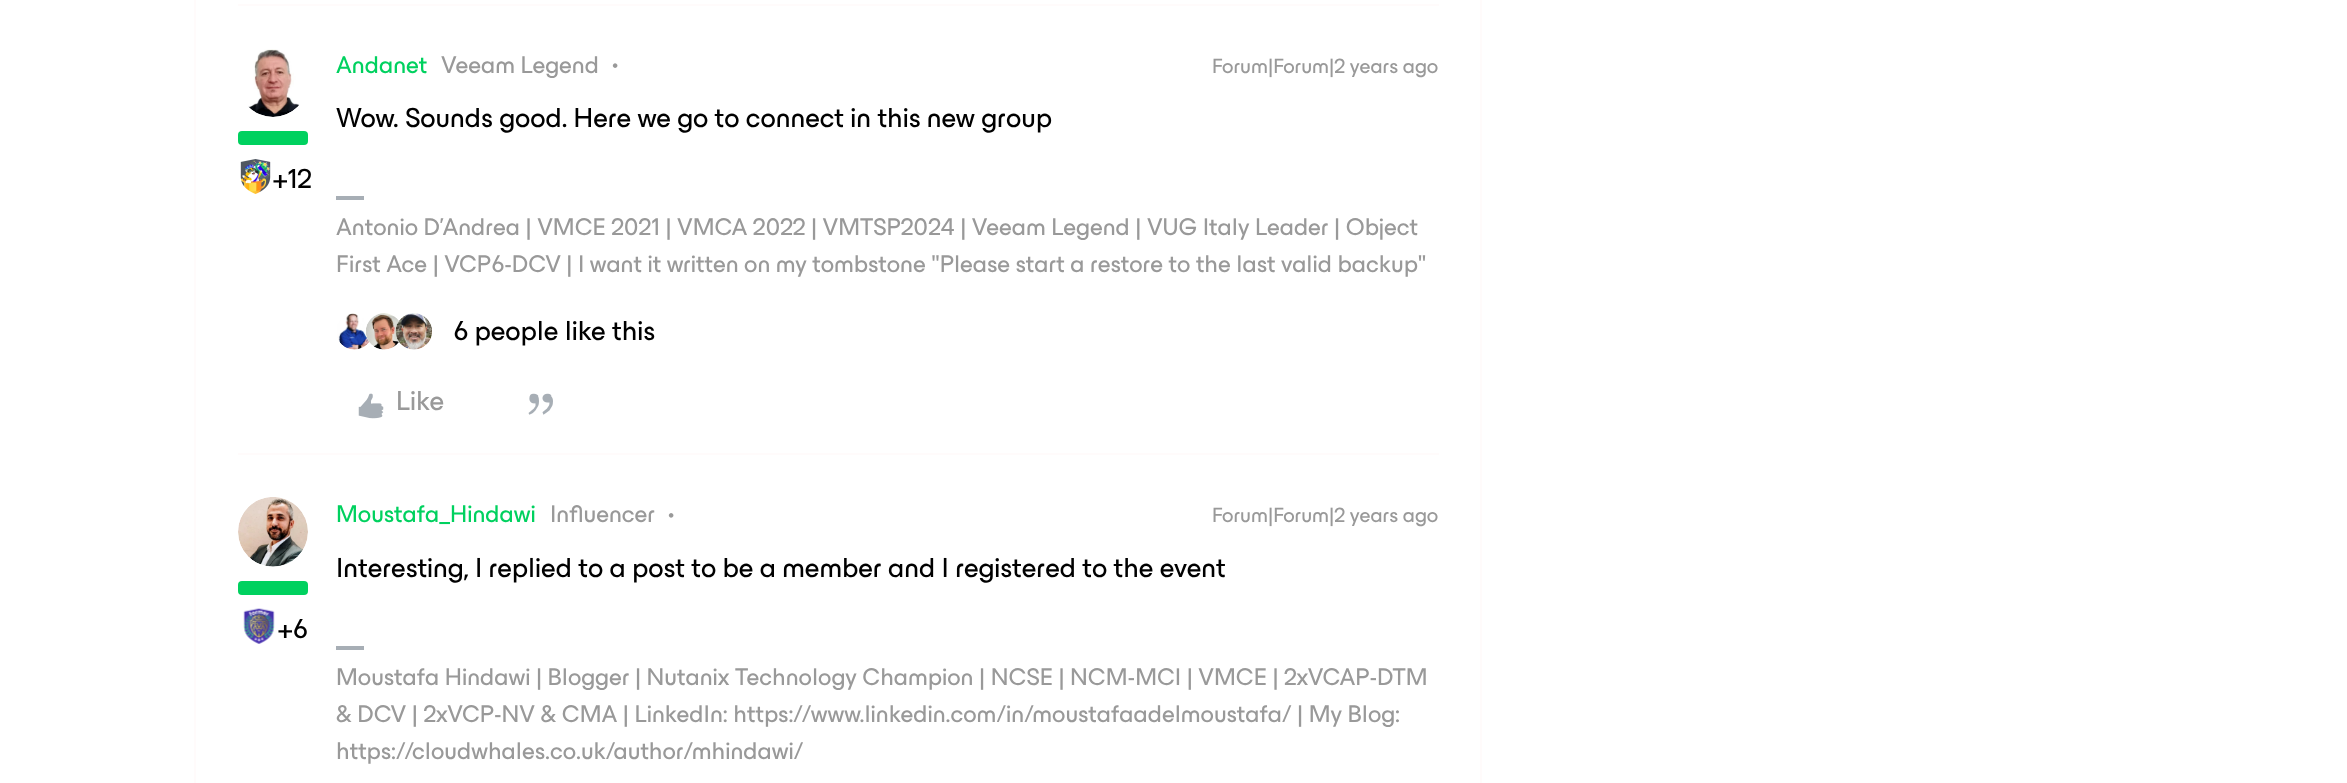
(async () => {
    const canvas = document.querySelector("canvas");
    canvas.width = 2347;
    canvas.height = 783;
    const context = canvas.getContext("2d");
    context.miterLimit = 4;
    context.fontKerning = "normal";
    function write(s, x, y, font, color) {
        context.font = font;
        context.fillStyle = color;
        context.fillText(s, x, y);
    }
    function block(x, y, w, h, color) {
        context.fillStyle = color;
        context.fillRect(x, y, w, h);
    }
    function card(x, y, w, h, r, color) {
        context.fillStyle = color;
        context.beginPath();
        context.roundRect(x, y, w, h, r);
        context.fill();
    }
    async function photo(src, x, y, w, h) {
        const img = new Image();
        img.src = src;
        await img.decode();
        context.drawImage(img, x, y, w, h);
    }

    block(0, 0, 2347, 783, "rgb(255, 255, 255)");
    context.strokeStyle = "rgb(255, 251, 251)";
    context.lineWidth = 2;
    context.strokeRect(195, -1, 1286, 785);
    block(238, 4, 1201, 2, "rgb(255, 251, 251)");
    write("Andanet", 336, 73, "24.5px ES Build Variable", "rgb(0, 209, 95)");
    write("Veeam Legend", 441, 73, "24.5px ES Build Variable", "rgb(153, 153, 153)");
    await photo("media/1.png", 612, 63, 6, 5);
    write("Forum|Forum|2 years ago", 1212, 73, "21px ES Build Variable", "rgb(153, 153, 153)");
    write("Wow. Sounds good. Here we go to connect in this new group", 336, 127, "28px ES Build Variable", "rgb(0, 0, 0)");
    await photo("media/2.png", 248, 49, 52, 68);
    card(238, 131, 70, 14, 4, "rgb(0, 209, 95)");
    await photo("media/3.png", 240, 159, 31, 35);
    write("+12", 273, 188, "28px ES Build Variable", "rgb(0, 0, 0)");
    block(336, 196, 28, 4, "rgb(167, 174, 181)");
    write("Antonio D'Andrea | VMCE 2021 | VMCA 2022 | VMTSP2024 | Veeam Legend | VUG Italy Leader | Object", 336, 235, "24.5px ES Build Variable", "rgb(153, 153, 153)");
    write("First Ace | VCP6-DCV | I want it written on my tombstone \"Please start a restore to the last valid backup\"", 336, 272, "24.5px ES Build Variable", "rgb(153, 153, 153)");
    await photo("media/4.png", 337, 313, 32, 37);
    context.fillStyle = "rgb(255, 255, 255)";
    context.beginPath();
    context.arc(384.5, 331.5, 18.5, 0, Math.PI * 2);
    context.fill();
    await photo("media/5.png", 366, 313, 33, 37);
    card(396, 313, 36, 37, 18, "rgb(255, 255, 255)");
    await photo("media/6.png", 395, 313, 37, 37);
    write("6 people like this", 453, 340, "28px ES Build Variable", "rgb(0, 0, 0)");
    await photo("media/7.png", 358, 393, 26, 26);
    write("Like", 396, 410, "28px ES Build Variable", "rgb(153, 153, 153)");
    await photo("media/8.png", 528, 393, 25, 22);
    block(238, 453, 1201, 2, "rgb(255, 251, 251)");
    write("Moustafa_Hindawi", 336, 522, "24.5px ES Build Variable", "rgb(0, 209, 95)");
    write("Influencer", 550, 522, "24.5px ES Build Variable", "rgb(153, 153, 153)");
    await photo("media/9.png", 668, 513, 6, 5);
    write("Forum|Forum|2 years ago", 1212, 522, "21px ES Build Variable", "rgb(153, 153, 153)");
    write("Interesting, I replied to a post to be a member and I registered to the event", 336, 577, "28px ES Build Variable", "rgb(0, 0, 0)");
    await photo("media/10.png", 238, 497, 70, 70);
    card(238, 581, 70, 14, 4, "rgb(0, 209, 95)");
    await photo("media/11.png", 243, 608, 32, 36);
    write("+6", 278, 638, "28px ES Build Variable", "rgb(0, 0, 0)");
    block(336, 646, 28, 4, "rgb(167, 174, 181)");
    write("Moustafa Hindawi | Blogger | Nutanix Technology Champion | NCSE | NCM-MCI | VMCE | 2xVCAP-DTM", 336, 685, "24.5px ES Build Variable", "rgb(153, 153, 153)");
    write("& DCV | 2xVCP-NV & CMA | LinkedIn: https://www.linkedin.com/in/moustafaadelmoustafa/ | My Blog:", 336, 722, "24.5px ES Build Variable", "rgb(153, 153, 153)");
    write("https://cloudwhales.co.uk/author/mhindawi/", 336, 759, "24.5px ES Build Variable", "rgb(153, 153, 153)");
})();
